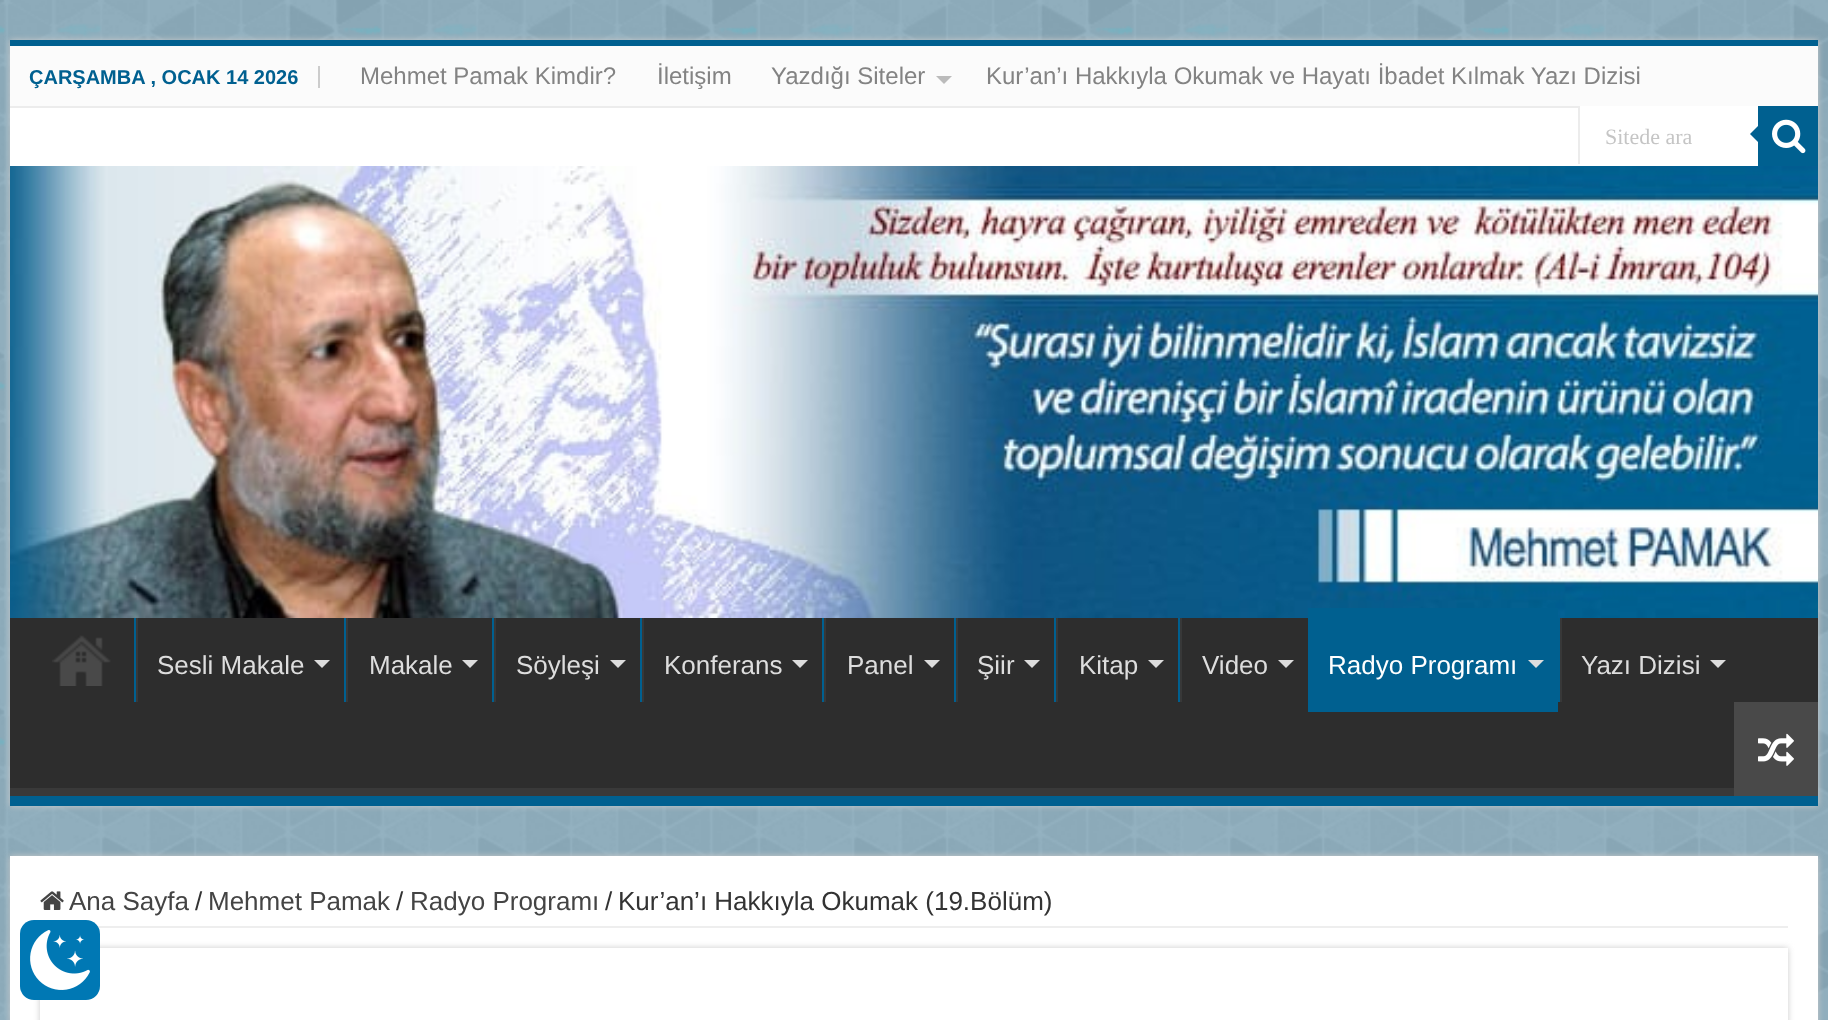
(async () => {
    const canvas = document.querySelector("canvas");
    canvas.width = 1828;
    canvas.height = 1020;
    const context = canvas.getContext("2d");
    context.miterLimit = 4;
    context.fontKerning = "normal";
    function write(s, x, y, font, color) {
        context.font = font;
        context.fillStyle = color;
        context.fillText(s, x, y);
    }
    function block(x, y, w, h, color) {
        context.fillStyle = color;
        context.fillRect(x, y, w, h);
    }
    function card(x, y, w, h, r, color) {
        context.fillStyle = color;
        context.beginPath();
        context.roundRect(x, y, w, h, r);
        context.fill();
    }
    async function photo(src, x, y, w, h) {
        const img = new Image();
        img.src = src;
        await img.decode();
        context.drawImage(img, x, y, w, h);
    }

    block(0, 0, 1828, 1020, "rgb(65, 118, 145)");
    await photo("media/1.png", 0, 0, 1828, 1020);
    context.fillStyle = "rgb(202, 202, 202)";
    context.filter = "blur(3px)";
    context.beginPath();
    context.rect(10, 40, 1808, 766);
    context.fill();
    context.filter = "none";
    block(10, 108, 1748, 58, "rgb(255, 255, 255)");
    block(10, 40, 1808, 6, "rgb(0, 96, 144)");
    block(10, 46, 1808, 60, "rgb(251, 251, 251)");
    block(10, 106, 1568, 2, "rgb(236, 236, 236)");
    block(318, 66, 2, 22, "rgb(204, 204, 204)");
    write("ÇARŞAMBA , OCAK 14 2026", 29, 84, "bold 20px Liberation Sans", "rgb(0, 96, 144)");
    write("Mehmet Pamak Kimdir?", 360, 84, "24px Liberation Sans", "rgb(131, 131, 131)");
    write("İletişim", 657, 84, "24px Liberation Sans", "rgb(131, 131, 131)");
    write("Yazdığı Siteler", 771, 84, "24px Liberation Sans", "rgb(131, 131, 131)");
    context.fillStyle = "rgb(187, 187, 187)";
    context.beginPath();
    context.moveTo(936, 76);
    context.lineTo(952, 76);
    context.lineTo(944, 84);
    context.closePath();
    context.fill();
    write("Kur’an’ı Hakkıyla Okumak ve Hayatı İbadet Kılmak Yazı Dizisi", 986, 84, "24px Liberation Sans", "rgb(131, 131, 131)");
    block(1580, 106, 178, 2, "rgb(255, 255, 255)");
    block(1578, 106, 2, 58, "rgb(236, 236, 236)");
    write("Sitede ara", 1605, 144, "22px Liberation Serif", "rgb(197, 197, 197)");
    block(1758, 106, 60, 60, "rgb(0, 96, 144)");
    await photo("media/2.png", 1772, 119, 34, 35);
    context.beginPath();
    context.moveTo(1758, 126);
    context.lineTo(1758, 142);
    context.lineTo(1750, 134);
    context.closePath();
    context.fill();
    await photo("media/3.png", 10, 166, 1808, 452);
    block(10, 618, 1808, 170, "rgb(45, 45, 45)");
    context.save();
    context.beginPath();
    context.rect(10, 618, 1808, 178);
    context.clip();
    context.fillStyle = "rgb(57, 57, 57)";
    context.beginPath();
    context.moveTo(-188, 420);
    context.lineTo(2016, 420);
    context.lineTo(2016, 994);
    context.lineTo(-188, 994);
    context.closePath();
    context.moveTo(8, 606);
    context.lineTo(1816, 606);
    context.bezierCurveTo(1817, 606, 1818, 607, 1818, 608);
    context.lineTo(1818, 786);
    context.bezierCurveTo(1818, 787, 1817, 788, 1816, 788);
    context.lineTo(8, 788);
    context.bezierCurveTo(7, 788, 6, 787, 6, 786);
    context.lineTo(6, 608);
    context.bezierCurveTo(6, 607, 7, 606, 8, 606);
    context.closePath();
    context.fill("evenodd");
    context.restore();
    block(10, 796, 1808, 10, "rgb(0, 96, 144)");
    await photo("media/4.png", 52, 635, 59, 51);
    block(134, 618, 2, 84, "rgb(0, 96, 144)");
    block(136, 618, 2, 84, "rgb(56, 56, 56)");
    write("Sesli Makale", 157, 674, "26px Liberation Sans", "rgb(221, 221, 221)");
    context.beginPath();
    context.moveTo(314, 660);
    context.lineTo(330, 660);
    context.lineTo(322, 668);
    context.closePath();
    context.fill();
    block(344, 618, 2, 84, "rgb(0, 96, 144)");
    block(346, 618, 2, 84, "rgb(56, 56, 56)");
    write("Makale", 369, 674, "26px Liberation Sans", "rgb(221, 221, 221)");
    context.beginPath();
    context.moveTo(462, 660);
    context.lineTo(478, 660);
    context.lineTo(470, 668);
    context.closePath();
    context.fill();
    block(492, 618, 2, 84, "rgb(0, 96, 144)");
    block(494, 618, 2, 84, "rgb(56, 56, 56)");
    write("Söyleşi", 516, 674, "26px Liberation Sans", "rgb(221, 221, 221)");
    context.beginPath();
    context.moveTo(610, 660);
    context.lineTo(626, 660);
    context.lineTo(618, 668);
    context.closePath();
    context.fill();
    block(640, 618, 2, 84, "rgb(0, 96, 144)");
    block(642, 618, 2, 84, "rgb(56, 56, 56)");
    write("Konferans", 664, 674, "26px Liberation Sans", "rgb(221, 221, 221)");
    context.beginPath();
    context.moveTo(792, 660);
    context.lineTo(808, 660);
    context.lineTo(800, 668);
    context.closePath();
    context.fill();
    block(822, 618, 2, 84, "rgb(0, 96, 144)");
    block(824, 618, 2, 84, "rgb(56, 56, 56)");
    write("Panel", 847, 674, "26px Liberation Sans", "rgb(221, 221, 221)");
    context.beginPath();
    context.moveTo(924, 660);
    context.lineTo(940, 660);
    context.lineTo(932, 668);
    context.closePath();
    context.fill();
    block(954, 618, 2, 84, "rgb(0, 96, 144)");
    block(956, 618, 2, 84, "rgb(56, 56, 56)");
    write("Şiir", 977, 674, "26px Liberation Sans", "rgb(221, 221, 221)");
    context.beginPath();
    context.moveTo(1024, 660);
    context.lineTo(1040, 660);
    context.lineTo(1032, 668);
    context.closePath();
    context.fill();
    block(1054, 618, 2, 84, "rgb(0, 96, 144)");
    block(1056, 618, 2, 84, "rgb(56, 56, 56)");
    write("Kitap", 1079, 674, "26px Liberation Sans", "rgb(221, 221, 221)");
    context.beginPath();
    context.moveTo(1148, 660);
    context.lineTo(1164, 660);
    context.lineTo(1156, 668);
    context.closePath();
    context.fill();
    block(1178, 618, 2, 84, "rgb(0, 96, 144)");
    block(1180, 618, 2, 84, "rgb(56, 56, 56)");
    write("Video", 1202, 674, "26px Liberation Sans", "rgb(221, 221, 221)");
    context.beginPath();
    context.moveTo(1278, 660);
    context.lineTo(1294, 660);
    context.lineTo(1286, 668);
    context.closePath();
    context.fill();
    block(1308, 608, 250, 104, "rgb(0, 96, 144)");
    write("Radyo Programı", 1328, 674, "26px Liberation Sans", "rgb(255, 255, 255)");
    context.fillStyle = "rgb(221, 221, 221)";
    context.beginPath();
    context.moveTo(1528, 660);
    context.lineTo(1544, 660);
    context.lineTo(1536, 668);
    context.closePath();
    context.fill();
    block(1558, 618, 2, 84, "rgb(0, 96, 144)");
    block(1560, 618, 2, 84, "rgb(56, 56, 56)");
    write("Yazı Dizisi", 1581, 674, "26px Liberation Sans", "rgb(221, 221, 221)");
    context.beginPath();
    context.moveTo(1710, 660);
    context.lineTo(1726, 660);
    context.lineTo(1718, 668);
    context.closePath();
    context.fill();
    block(1734, 702, 84, 94, "rgb(73, 73, 73)");
    await photo("media/5.png", 1758, 733, 36, 33);
    context.fillStyle = "rgb(202, 202, 202)";
    context.filter = "blur(3px)";
    context.beginPath();
    context.rect(10, 856, 1808, 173);
    context.fill();
    context.filter = "none";
    block(10, 856, 1808, 164, "rgb(255, 255, 255)");
    block(97, 926, 1691, 2, "rgb(238, 238, 238)");
    await photo("media/6.png", 40, 891, 24, 19);
    write("Ana Sayfa", 69, 910, "26px Liberation Sans", "rgb(68, 68, 68)");
    write("/", 195, 910, "26px Liberation Sans", "rgb(51, 51, 51)");
    write("Mehmet Pamak", 208, 910, "26px Liberation Sans", "rgb(68, 68, 68)");
    write("/", 396, 910, "26px Liberation Sans", "rgb(51, 51, 51)");
    write("Radyo Programı", 410, 910, "26px Liberation Sans", "rgb(68, 68, 68)");
    write("/", 605, 910, "26px Liberation Sans", "rgb(51, 51, 51)");
    write("Kur’an’ı Hakkıyla Okumak (19.Bölüm)", 618, 910, "26px Liberation Sans", "rgb(51, 51, 51)");
    context.save();
    context.beginPath();
    context.moveTo(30, 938);
    context.lineTo(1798, 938);
    context.lineTo(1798, 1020);
    context.lineTo(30, 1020);
    context.closePath();
    context.moveTo(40, 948);
    context.lineTo(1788, 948);
    context.lineTo(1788, 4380);
    context.lineTo(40, 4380);
    context.closePath();
    context.clip("evenodd");
    context.fillStyle = "rgb(202, 202, 202)";
    context.filter = "blur(3px)";
    context.beginPath();
    context.rect(40, 948, 1748, 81);
    context.fill();
    context.filter = "none";
    context.restore();
    card(20, 920, 80, 80, 14, "rgb(0, 120, 180)");
    await photo("media/7.png", 30, 930, 60, 60);
})();
